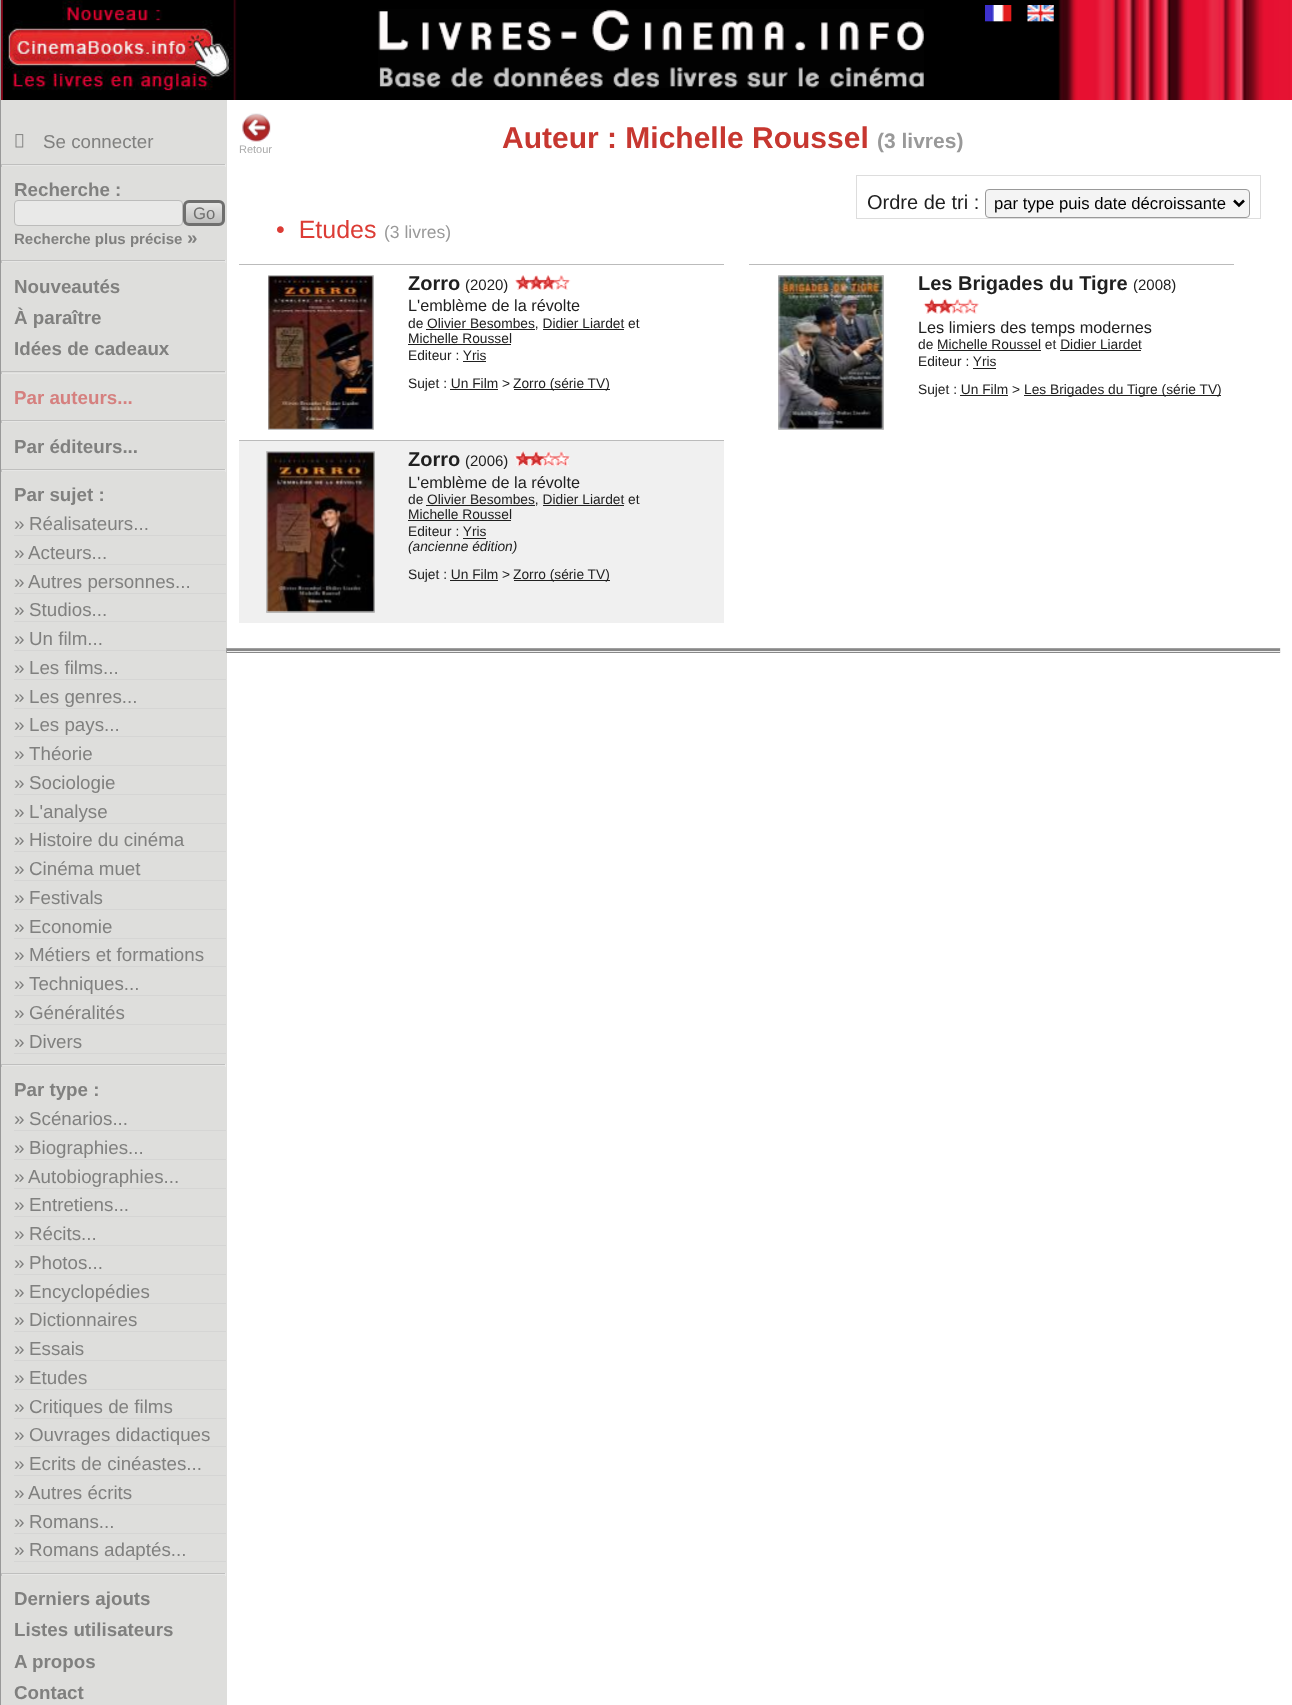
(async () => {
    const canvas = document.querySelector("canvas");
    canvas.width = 1292;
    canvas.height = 1705;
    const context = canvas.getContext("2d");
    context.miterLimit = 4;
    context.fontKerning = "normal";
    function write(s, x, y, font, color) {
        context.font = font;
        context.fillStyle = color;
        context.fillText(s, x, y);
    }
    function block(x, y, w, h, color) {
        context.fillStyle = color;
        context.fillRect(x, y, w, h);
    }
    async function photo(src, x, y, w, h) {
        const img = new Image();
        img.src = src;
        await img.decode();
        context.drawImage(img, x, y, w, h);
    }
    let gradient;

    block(0, 0, 1292, 1705, "rgb(255, 255, 255)");
    block(0, 0, 1, 100, "rgb(153, 153, 153)");
    block(1, 0, 1058, 100, "rgb(0, 0, 0)");
    await photo("media/1.png", 1058, 0, 234, 100);
    await photo("media/2.png", 1, 0, 236, 100);
    await photo("media/3.png", 378, 9, 546, 79);
    await photo("media/4.png", 2, 0, 232, 100);
    await photo("media/5.png", 985, 5, 27, 17);
    await photo("media/6.png", 1027, 5, 27, 17);
    block(0, 100, 1, 1605, "rgb(153, 153, 153)");
    block(1, 100, 226, 1605, "rgb(222, 222, 220)");
    await photo("media/7.png", 15, 134, 9, 14);
    write("Se connecter", 43, 148, "18.75px Liberation Sans", "rgb(128, 128, 127)");
    block(1, 164, 225, 1, "rgb(191, 191, 190)");
    block(225, 164, 1, 3, "rgb(230, 230, 229)");
    block(1, 165, 225, 1, "rgb(230, 230, 229)");
    block(1, 164, 1, 3, "rgb(191, 191, 190)");
    write("Recherche :", 14, 196, "bold 18.75px Liberation Sans", "rgb(128, 128, 127)");
    context.fillStyle = "rgb(233, 233, 232)";
    context.beginPath();
    context.roundRect(14.5, 200.5, 168, 25, 3.5);
    context.fill();
    context.strokeStyle = "rgb(188, 188, 187)";
    context.stroke();
    context.save();
    context.beginPath();
    context.roundRect(183, 200, 42, 26, 6);
    context.clip();
    gradient = context.createLinearGradient(204, 203, 204, 224);
    gradient.addColorStop(0, "rgb(230, 230, 229)");
    gradient.addColorStop(1, "rgb(188, 188, 187)");
    context.fillStyle = gradient;
    context.fillRect(183, 203, 42, 21);
    context.restore();
    context.beginPath();
    context.roundRect(184.5, 201.5, 39, 23, 4.5);
    context.strokeStyle = "rgb(111, 111, 110)";
    context.lineWidth = 3;
    context.stroke();
    write("Go", 193, 219, "16.7px Liberation Sans", "rgb(111, 111, 110)");
    write("Recherche plus précise", 14, 244, "bold 15px Liberation Sans", "rgb(128, 128, 127)");
    write("»", 187, 244, "bold 18.75px Liberation Sans", "rgb(128, 128, 127)");
    block(1, 260, 225, 1, "rgb(191, 191, 190)");
    block(225, 260, 1, 3, "rgb(230, 230, 229)");
    block(1, 261, 225, 1, "rgb(230, 230, 229)");
    block(1, 260, 1, 3, "rgb(191, 191, 190)");
    write("Nouveautés", 14, 293, "bold 18.75px Liberation Sans", "rgb(128, 128, 127)");
    write("À paraître", 14, 324, "bold 18.75px Liberation Sans", "rgb(128, 128, 127)");
    write("Idées de cadeaux", 14, 355, "bold 18.75px Liberation Sans", "rgb(128, 128, 127)");
    block(1, 371, 225, 1, "rgb(191, 191, 190)");
    block(225, 371, 1, 3, "rgb(230, 230, 229)");
    block(1, 373, 225, 1, "rgb(230, 230, 229)");
    block(1, 371, 1, 3, "rgb(191, 191, 190)");
    write("Par auteurs...", 14, 404, "bold 18.75px Liberation Sans", "rgb(213, 128, 127)");
    block(1, 420, 225, 1, "rgb(191, 191, 190)");
    block(225, 420, 1, 3, "rgb(230, 230, 229)");
    block(1, 421, 225, 1, "rgb(230, 230, 229)");
    block(1, 420, 1, 3, "rgb(191, 191, 190)");
    write("Par éditeurs...", 14, 453, "bold 18.75px Liberation Sans", "rgb(128, 128, 127)");
    block(1, 469, 225, 1, "rgb(191, 191, 190)");
    block(225, 469, 1, 3, "rgb(230, 230, 229)");
    block(1, 470, 225, 1, "rgb(230, 230, 229)");
    block(1, 469, 1, 3, "rgb(191, 191, 190)");
    write("Par sujet :", 14, 501, "bold 18.75px Liberation Sans", "rgb(128, 128, 127)");
    block(14, 535, 212, 1, "rgb(213, 213, 212)");
    write("»", 14, 530, "18.75px Liberation Sans", "rgb(128, 128, 127)");
    write("Réalisateurs...", 29, 530, "18.75px Liberation Sans", "rgb(128, 128, 127)");
    block(14, 564, 212, 1, "rgb(213, 213, 212)");
    write("»", 14, 559, "18.75px Liberation Sans", "rgb(128, 128, 127)");
    write("Acteurs...", 28, 559, "18.75px Liberation Sans", "rgb(128, 128, 127)");
    block(14, 593, 212, 1, "rgb(213, 213, 212)");
    write("»", 14, 588, "18.75px Liberation Sans", "rgb(128, 128, 127)");
    write("Autres personnes...", 28, 588, "18.75px Liberation Sans", "rgb(128, 128, 127)");
    block(14, 621, 212, 1, "rgb(213, 213, 212)");
    write("»", 14, 616, "18.75px Liberation Sans", "rgb(128, 128, 127)");
    write("Studios...", 29, 616, "18.75px Liberation Sans", "rgb(128, 128, 127)");
    block(14, 650, 212, 1, "rgb(213, 213, 212)");
    write("»", 14, 645, "18.75px Liberation Sans", "rgb(128, 128, 127)");
    write("Un film...", 29, 645, "18.75px Liberation Sans", "rgb(128, 128, 127)");
    block(14, 679, 212, 1, "rgb(213, 213, 212)");
    write("»", 14, 674, "18.75px Liberation Sans", "rgb(128, 128, 127)");
    write("Les films...", 29, 674, "18.75px Liberation Sans", "rgb(128, 128, 127)");
    block(14, 708, 212, 1, "rgb(213, 213, 212)");
    write("»", 14, 703, "18.75px Liberation Sans", "rgb(128, 128, 127)");
    write("Les genres...", 29, 703, "18.75px Liberation Sans", "rgb(128, 128, 127)");
    block(14, 736, 212, 1, "rgb(213, 213, 212)");
    write("»", 14, 731, "18.75px Liberation Sans", "rgb(128, 128, 127)");
    write("Les pays...", 29, 731, "18.75px Liberation Sans", "rgb(128, 128, 127)");
    block(14, 765, 212, 1, "rgb(213, 213, 212)");
    write("»", 14, 760, "18.75px Liberation Sans", "rgb(128, 128, 127)");
    write("Théorie", 29, 760, "18.75px Liberation Sans", "rgb(128, 128, 127)");
    block(14, 794, 212, 1, "rgb(213, 213, 212)");
    write("»", 14, 789, "18.75px Liberation Sans", "rgb(128, 128, 127)");
    write("Sociologie", 29, 789, "18.75px Liberation Sans", "rgb(128, 128, 127)");
    block(14, 823, 212, 1, "rgb(213, 213, 212)");
    write("»", 14, 818, "18.75px Liberation Sans", "rgb(128, 128, 127)");
    write("L'analyse", 29, 818, "18.75px Liberation Sans", "rgb(128, 128, 127)");
    block(14, 851, 212, 1, "rgb(213, 213, 212)");
    write("»", 14, 846, "18.75px Liberation Sans", "rgb(128, 128, 127)");
    write("Histoire du cinéma", 29, 846, "18.75px Liberation Sans", "rgb(128, 128, 127)");
    block(14, 880, 212, 1, "rgb(213, 213, 212)");
    write("»", 14, 875, "18.75px Liberation Sans", "rgb(128, 128, 127)");
    write("Cinéma muet", 29, 875, "18.75px Liberation Sans", "rgb(128, 128, 127)");
    block(14, 909, 212, 1, "rgb(213, 213, 212)");
    write("»", 14, 904, "18.75px Liberation Sans", "rgb(128, 128, 127)");
    write("Festivals", 29, 904, "18.75px Liberation Sans", "rgb(128, 128, 127)");
    block(14, 938, 212, 1, "rgb(213, 213, 212)");
    write("»", 14, 933, "18.75px Liberation Sans", "rgb(128, 128, 127)");
    write("Economie", 29, 933, "18.75px Liberation Sans", "rgb(128, 128, 127)");
    block(14, 966, 212, 1, "rgb(213, 213, 212)");
    write("»", 14, 961, "18.75px Liberation Sans", "rgb(128, 128, 127)");
    write("Métiers et formations", 29, 961, "18.75px Liberation Sans", "rgb(128, 128, 127)");
    block(14, 995, 212, 1, "rgb(213, 213, 212)");
    write("»", 14, 990, "18.75px Liberation Sans", "rgb(128, 128, 127)");
    write("Techniques...", 29, 990, "18.75px Liberation Sans", "rgb(128, 128, 127)");
    block(14, 1024, 212, 1, "rgb(213, 213, 212)");
    write("»", 14, 1019, "18.75px Liberation Sans", "rgb(128, 128, 127)");
    write("Généralités", 29, 1019, "18.75px Liberation Sans", "rgb(128, 128, 127)");
    block(14, 1053, 212, 1, "rgb(213, 213, 212)");
    write("»", 14, 1048, "18.75px Liberation Sans", "rgb(128, 128, 127)");
    write("Divers", 29, 1048, "18.75px Liberation Sans", "rgb(128, 128, 127)");
    block(1, 1064, 225, 1, "rgb(191, 191, 190)");
    block(225, 1064, 1, 3, "rgb(230, 230, 229)");
    block(1, 1065, 225, 1, "rgb(230, 230, 229)");
    block(1, 1064, 1, 3, "rgb(191, 191, 190)");
    write("Par type :", 14, 1096, "bold 18.75px Liberation Sans", "rgb(128, 128, 127)");
    block(14, 1130, 212, 1, "rgb(213, 213, 212)");
    write("»", 14, 1125, "18.75px Liberation Sans", "rgb(128, 128, 127)");
    write("Scénarios...", 29, 1125, "18.75px Liberation Sans", "rgb(128, 128, 127)");
    block(14, 1159, 212, 1, "rgb(213, 213, 212)");
    write("»", 14, 1154, "18.75px Liberation Sans", "rgb(128, 128, 127)");
    write("Biographies...", 29, 1154, "18.75px Liberation Sans", "rgb(128, 128, 127)");
    block(14, 1188, 212, 1, "rgb(213, 213, 212)");
    write("»", 14, 1183, "18.75px Liberation Sans", "rgb(128, 128, 127)");
    write("Autobiographies...", 28, 1183, "18.75px Liberation Sans", "rgb(128, 128, 127)");
    block(14, 1216, 212, 1, "rgb(213, 213, 212)");
    write("»", 14, 1211, "18.75px Liberation Sans", "rgb(128, 128, 127)");
    write("Entretiens...", 29, 1211, "18.75px Liberation Sans", "rgb(128, 128, 127)");
    block(14, 1245, 212, 1, "rgb(213, 213, 212)");
    write("»", 14, 1240, "18.75px Liberation Sans", "rgb(128, 128, 127)");
    write("Récits...", 29, 1240, "18.75px Liberation Sans", "rgb(128, 128, 127)");
    block(14, 1274, 212, 1, "rgb(213, 213, 212)");
    write("»", 14, 1269, "18.75px Liberation Sans", "rgb(128, 128, 127)");
    write("Photos...", 29, 1269, "18.75px Liberation Sans", "rgb(128, 128, 127)");
    block(14, 1303, 212, 1, "rgb(213, 213, 212)");
    write("»", 14, 1298, "18.75px Liberation Sans", "rgb(128, 128, 127)");
    write("Encyclopédies", 29, 1298, "18.75px Liberation Sans", "rgb(128, 128, 127)");
    block(14, 1331, 212, 1, "rgb(213, 213, 212)");
    write("»", 14, 1326, "18.75px Liberation Sans", "rgb(128, 128, 127)");
    write("Dictionnaires", 29, 1326, "18.75px Liberation Sans", "rgb(128, 128, 127)");
    block(14, 1360, 212, 1, "rgb(213, 213, 212)");
    write("»", 14, 1355, "18.75px Liberation Sans", "rgb(128, 128, 127)");
    write("Essais", 29, 1355, "18.75px Liberation Sans", "rgb(128, 128, 127)");
    block(14, 1389, 212, 1, "rgb(213, 213, 212)");
    write("»", 14, 1384, "18.75px Liberation Sans", "rgb(128, 128, 127)");
    write("Etudes", 29, 1384, "18.75px Liberation Sans", "rgb(128, 128, 127)");
    block(14, 1418, 212, 1, "rgb(213, 213, 212)");
    write("»", 14, 1413, "18.75px Liberation Sans", "rgb(128, 128, 127)");
    write("Critiques de films", 29, 1413, "18.75px Liberation Sans", "rgb(128, 128, 127)");
    block(14, 1446, 212, 1, "rgb(213, 213, 212)");
    write("»", 14, 1441, "18.75px Liberation Sans", "rgb(128, 128, 127)");
    write("Ouvrages didactiques", 29, 1441, "18.75px Liberation Sans", "rgb(128, 128, 127)");
    block(14, 1475, 212, 1, "rgb(213, 213, 212)");
    write("»", 14, 1470, "18.75px Liberation Sans", "rgb(128, 128, 127)");
    write("Ecrits de cinéastes...", 29, 1470, "18.75px Liberation Sans", "rgb(128, 128, 127)");
    block(14, 1504, 212, 1, "rgb(213, 213, 212)");
    write("»", 14, 1499, "18.75px Liberation Sans", "rgb(128, 128, 127)");
    write("Autres écrits", 28, 1499, "18.75px Liberation Sans", "rgb(128, 128, 127)");
    block(14, 1533, 212, 1, "rgb(213, 213, 212)");
    write("»", 14, 1528, "18.75px Liberation Sans", "rgb(128, 128, 127)");
    write("Romans...", 29, 1528, "18.75px Liberation Sans", "rgb(128, 128, 127)");
    block(14, 1561, 212, 1, "rgb(213, 213, 212)");
    write("»", 14, 1556, "18.75px Liberation Sans", "rgb(128, 128, 127)");
    write("Romans adaptés...", 29, 1556, "18.75px Liberation Sans", "rgb(128, 128, 127)");
    block(1, 1573, 225, 1, "rgb(191, 191, 190)");
    block(225, 1573, 1, 3, "rgb(230, 230, 229)");
    block(1, 1574, 225, 1, "rgb(230, 230, 229)");
    block(1, 1573, 1, 3, "rgb(191, 191, 190)");
    write("Derniers ajouts", 14, 1605, "bold 18.75px Liberation Sans", "rgb(128, 128, 127)");
    write("Listes utilisateurs", 14, 1636, "bold 18.75px Liberation Sans", "rgb(128, 128, 127)");
    write("A propos", 14, 1668, "bold 18.75px Liberation Sans", "rgb(128, 128, 127)");
    write("Contact", 14, 1699, "bold 18.75px Liberation Sans", "rgb(128, 128, 127)");
    await photo("media/8.png", 242, 113, 29, 29);
    write("Retour", 239, 153, "11px Liberation Sans", "rgb(170, 170, 170)");
    write("Auteur : Michelle Roussel", 502, 148, "bold 30px Liberation Sans", "rgb(199, 55, 48)");
    write("(3 livres)", 877, 148, "bold 21px Liberation Sans", "rgb(153, 153, 153)");
    context.strokeStyle = "rgb(221, 221, 221)";
    context.lineWidth = 1;
    context.strokeRect(856.5, 175.5, 404, 43);
    write("Ordre de tri :", 867, 209, "20px Liberation Sans", "rgb(32, 32, 32)");
    context.fillStyle = "rgb(244, 244, 244)";
    context.beginPath();
    context.roundRect(985.5, 189.5, 264, 28, 3.5);
    context.fill();
    context.strokeStyle = "rgb(153, 153, 153)";
    context.stroke();
    context.beginPath();
    context.moveTo(1234, 200.5);
    context.lineTo(1239, 205.5);
    context.lineTo(1244, 200.5);
    context.strokeStyle = "rgb(0, 0, 0)";
    context.lineWidth = 2.5;
    context.stroke();
    write("par type puis date décroissante", 994, 209, "16.7px Liberation Sans", "rgb(0, 0, 0)");
    write("•  Etudes", 276, 238, "25px Liberation Sans", "rgb(220, 60, 53)");
    write("(3 livres)", 384, 238, "17.5px Liberation Sans", "rgb(153, 153, 153)");
    block(239, 264, 485, 1, "rgb(187, 187, 187)");
    context.fillStyle = "rgb(204, 204, 204)";
    context.beginPath();
    context.rect(268.5, 275.5, 105, 154);
    context.fill();
    context.strokeStyle = "rgb(187, 187, 187)";
    context.lineWidth = 1;
    context.stroke();
    await photo("media/9.png", 268, 276, 106, 153);
    write("Zorro", 408, 290, "bold 20px Liberation Sans", "rgb(32, 32, 32)");
    write("(2020)", 465, 290, "15px Liberation Sans", "rgb(32, 32, 32)");
    await photo("media/10.png", 515, 275, 56, 15);
    write("L'emblème de la révolte", 408, 311, "16.25px Liberation Sans", "rgb(32, 32, 32)");
    write("de Olivier Besombes, Didier Liardet et", 408, 328, "13.75px Liberation Sans", "rgb(32, 32, 32)");
    block(426, 329, 109, 1, "rgb(32, 32, 32)");
    block(543, 329, 81, 1, "rgb(32, 32, 32)");
    write("Michelle Roussel", 408, 343, "13.75px Liberation Sans", "rgb(32, 32, 32)");
    block(408, 344, 103, 1, "rgb(32, 32, 32)");
    write("Editeur : Yris", 408, 360, "13.75px Liberation Sans", "rgb(32, 32, 32)");
    block(463, 361, 23, 1, "rgb(32, 32, 32)");
    write("Sujet : Un Film >", 408, 388, "13.75px Liberation Sans", "rgb(32, 32, 32)");
    block(514, 389, 96, 1, "rgb(32, 32, 32)");
    write("Zorro (série TV)", 513, 388, "13.75px Liberation Sans", "rgb(32, 32, 32)");
    block(450, 389, 48, 1, "rgb(32, 32, 32)");
    block(749, 264, 485, 1, "rgb(187, 187, 187)");
    context.fillStyle = "rgb(204, 204, 204)";
    context.beginPath();
    context.rect(778.5, 275.5, 105, 154);
    context.fill();
    context.stroke();
    await photo("media/11.png", 778, 276, 106, 153);
    write("Les Brigades du Tigre", 918, 290, "bold 20px Liberation Sans", "rgb(32, 32, 32)");
    write("(2008)", 1133, 290, "15px Liberation Sans", "rgb(32, 32, 32)");
    await photo("media/12.png", 923, 298, 56, 16);
    write("Les limiers des temps modernes", 918, 333, "16.25px Liberation Sans", "rgb(32, 32, 32)");
    write("de Michelle Roussel et Didier Liardet", 918, 349, "13.75px Liberation Sans", "rgb(32, 32, 32)");
    block(938, 350, 103, 1, "rgb(32, 32, 32)");
    block(1060, 350, 81, 1, "rgb(32, 32, 32)");
    write("Editeur : Yris", 918, 366, "13.75px Liberation Sans", "rgb(32, 32, 32)");
    block(973, 368, 23, 1, "rgb(32, 32, 32)");
    write("Sujet : Un Film >", 918, 394, "13.75px Liberation Sans", "rgb(32, 32, 32)");
    block(1024, 395, 197, 1, "rgb(32, 32, 32)");
    write("Les Brigades du Tigre (série TV)", 1024, 394, "13.75px Liberation Sans", "rgb(32, 32, 32)");
    block(960, 395, 48, 1, "rgb(32, 32, 32)");
    block(239, 441, 485, 182, "rgb(240, 240, 240)");
    block(239, 440, 485, 1, "rgb(187, 187, 187)");
    context.fillStyle = "rgb(204, 204, 204)";
    context.beginPath();
    context.rect(266.5, 451.5, 108, 161);
    context.fill();
    context.stroke();
    await photo("media/13.png", 267, 452, 108, 161);
    write("Zorro", 408, 466, "bold 20px Liberation Sans", "rgb(32, 32, 32)");
    write("(2006)", 465, 466, "15px Liberation Sans", "rgb(32, 32, 32)");
    await photo("media/14.png", 514, 451, 56, 16);
    write("L'emblème de la révolte", 408, 488, "16.25px Liberation Sans", "rgb(32, 32, 32)");
    write("de Olivier Besombes, Didier Liardet et", 408, 504, "13.75px Liberation Sans", "rgb(32, 32, 32)");
    block(426, 505, 109, 1, "rgb(32, 32, 32)");
    block(543, 505, 81, 1, "rgb(32, 32, 32)");
    write("Michelle Roussel", 408, 519, "13.75px Liberation Sans", "rgb(32, 32, 32)");
    block(408, 520, 103, 1, "rgb(32, 32, 32)");
    write("Editeur : Yris", 408, 536, "13.75px Liberation Sans", "rgb(32, 32, 32)");
    block(463, 538, 23, 1, "rgb(32, 32, 32)");
    write("(ancienne édition)", 408, 551, "italic 13.75px Liberation Sans", "rgb(32, 32, 32)");
    write("Sujet : Un Film >", 408, 579, "13.75px Liberation Sans", "rgb(32, 32, 32)");
    block(514, 580, 96, 1, "rgb(32, 32, 32)");
    write("Zorro (série TV)", 513, 579, "13.75px Liberation Sans", "rgb(32, 32, 32)");
    block(450, 580, 48, 1, "rgb(32, 32, 32)");
    block(226, 649, 1055, 4, "rgb(136, 136, 136)");
    block(226, 648, 1055, 1, "rgb(159, 159, 159)");
    block(1280, 648, 1, 5, "rgb(238, 238, 238)");
    block(226, 651, 1055, 1, "rgb(238, 238, 238)");
    block(226, 648, 1, 5, "rgb(159, 159, 159)");
})();
